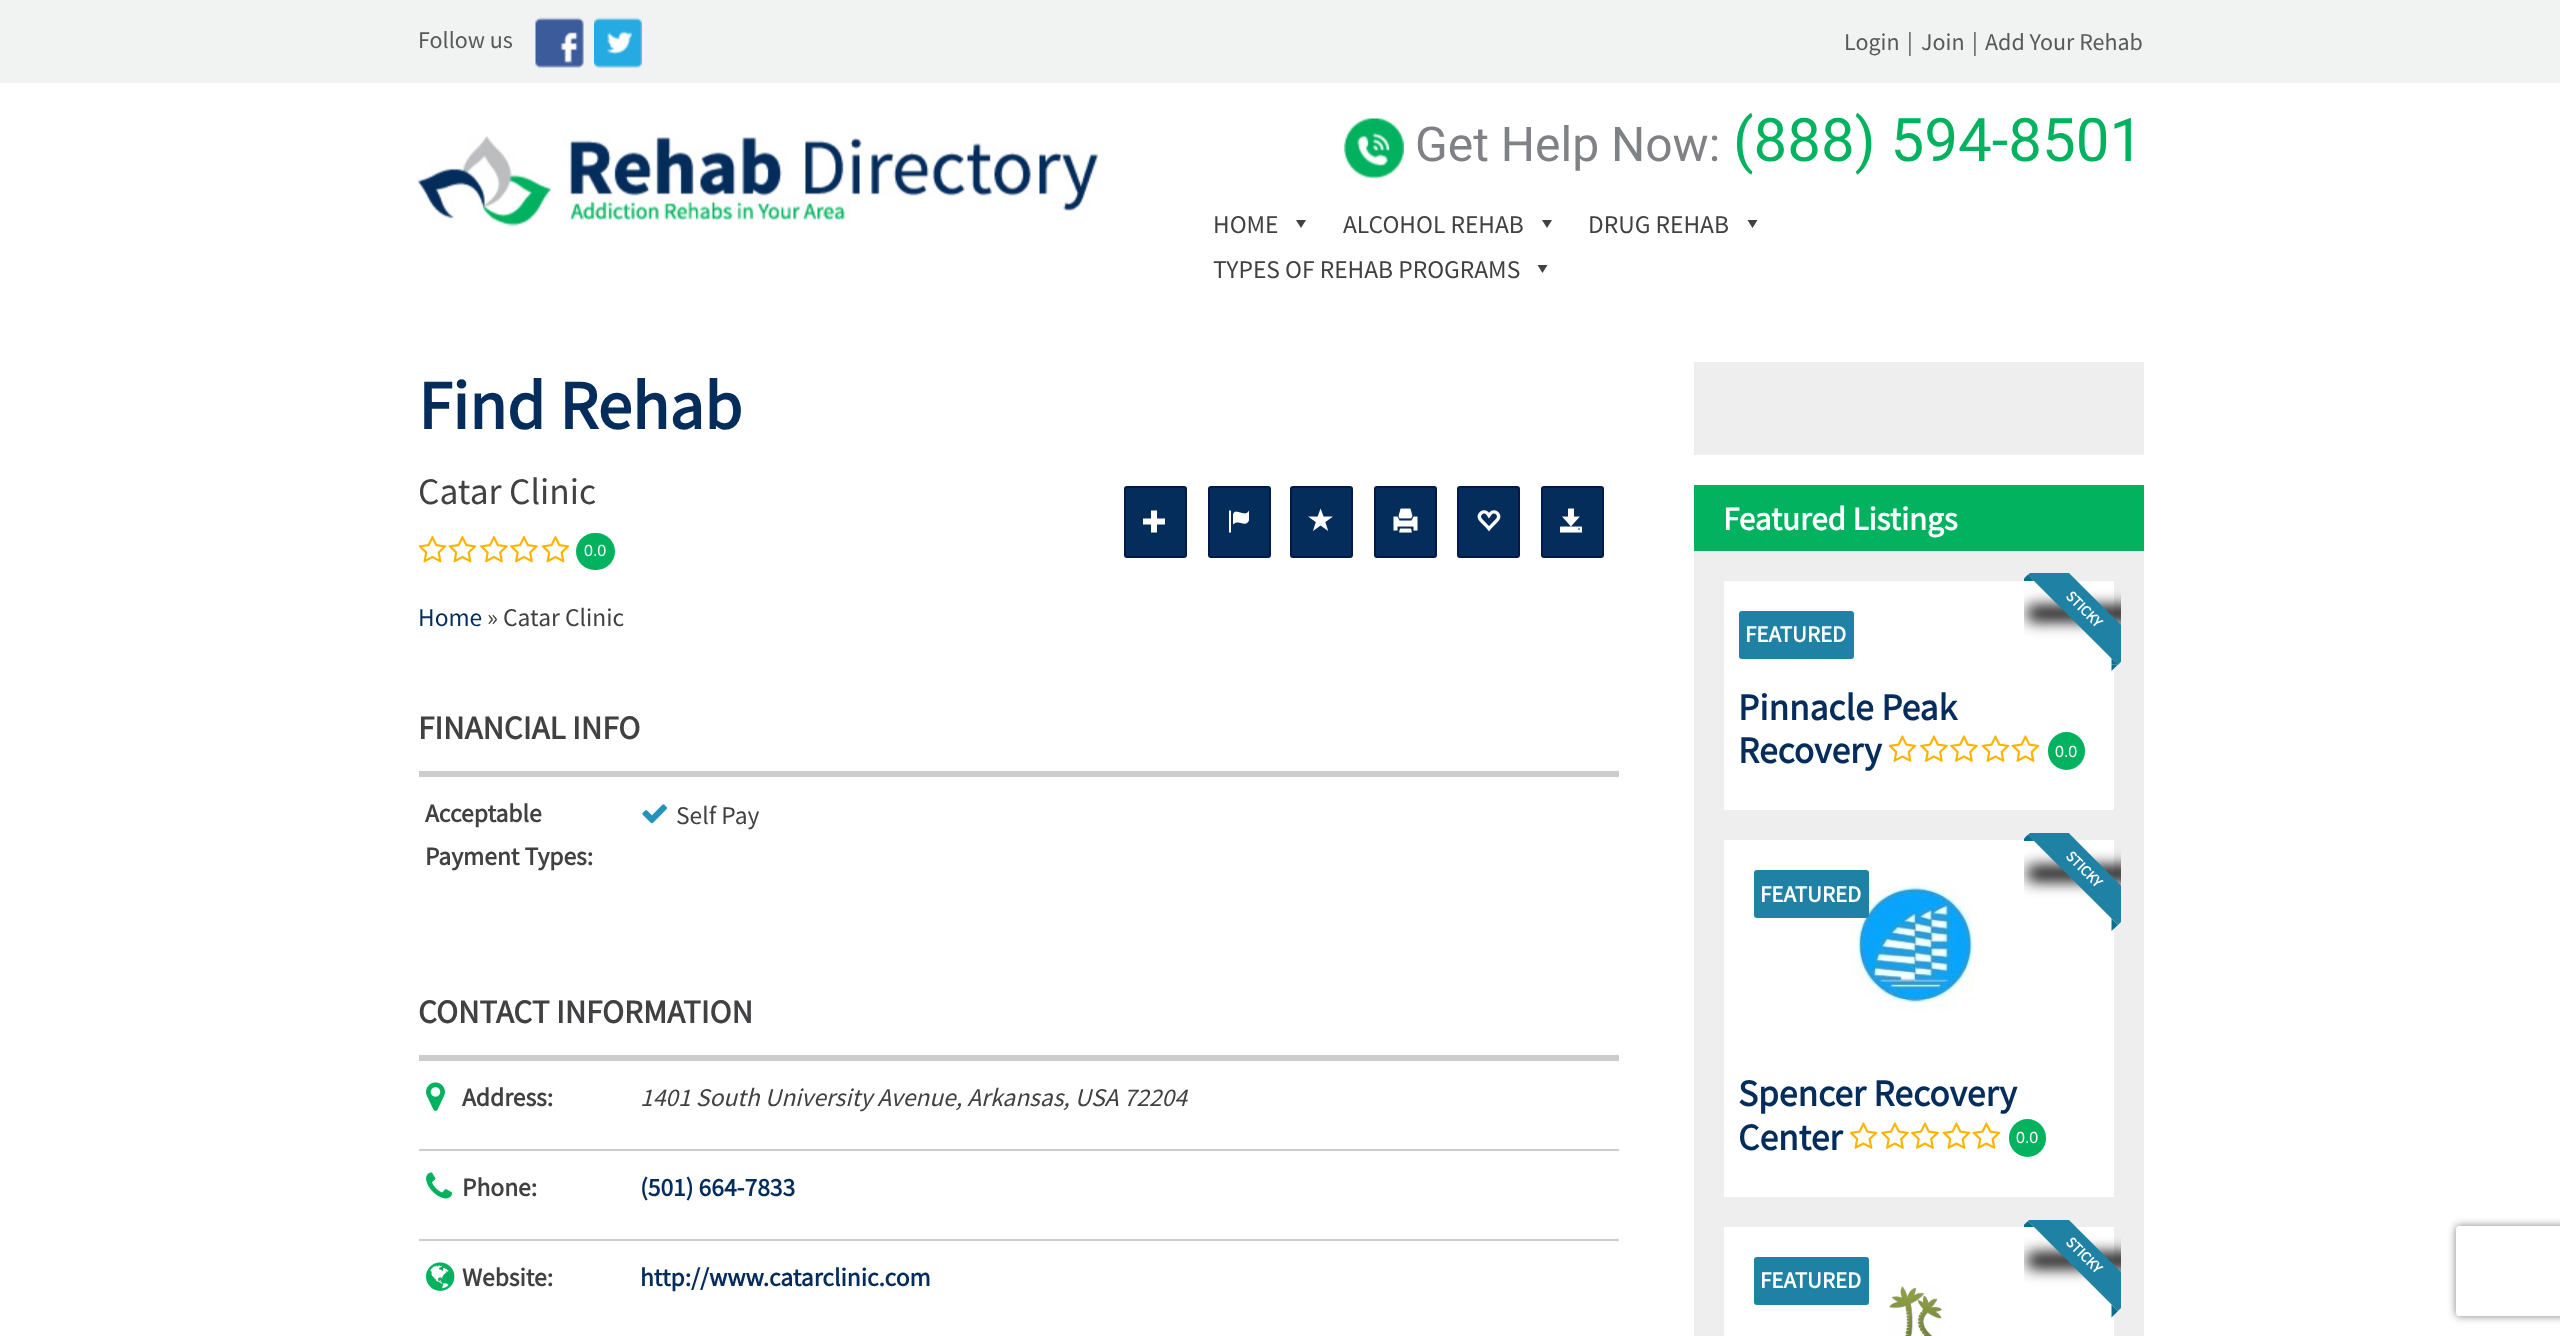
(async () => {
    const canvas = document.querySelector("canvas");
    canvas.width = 2560;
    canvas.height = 1336;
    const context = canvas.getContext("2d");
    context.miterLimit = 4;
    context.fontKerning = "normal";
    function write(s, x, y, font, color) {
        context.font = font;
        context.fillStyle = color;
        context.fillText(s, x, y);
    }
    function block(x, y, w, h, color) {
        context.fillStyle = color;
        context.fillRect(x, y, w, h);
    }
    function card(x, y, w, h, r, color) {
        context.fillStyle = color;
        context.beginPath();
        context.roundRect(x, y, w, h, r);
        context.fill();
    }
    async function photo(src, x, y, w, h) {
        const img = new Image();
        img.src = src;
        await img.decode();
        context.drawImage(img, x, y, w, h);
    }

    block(0, 0, 2560, 1336, "rgb(255, 255, 255)");
    block(0, 0, 2560, 83, "rgb(241, 242, 242)");
    write("Follow us", 418, 48, "24px Source Sans Pro", "rgb(88, 89, 91)");
    await photo("media/1.png", 535, 17, 49, 51);
    await photo("media/2.png", 594, 17, 48, 51);
    write("Login", 1844, 50, "24px Source Sans Pro", "rgb(88, 89, 91)");
    write("|", 1907, 50, "24px Source Sans Pro", "rgb(88, 89, 91)");
    write("Join", 1921, 50, "24px Source Sans Pro", "rgb(88, 89, 91)");
    write("|", 1972, 50, "24px Source Sans Pro", "rgb(88, 89, 91)");
    write("Add Your Rehab", 1985, 50, "24px Source Sans Pro", "rgb(88, 89, 91)");
    await photo("media/3.png", 418, 136, 680, 90);
    await photo("media/4.png", 1344, 118, 60, 61);
    write("Get Help Now:", 1415, 161, "48px Roboto", "rgb(128, 129, 132)");
    write("(888) 594-8501", 1733, 161, "60px Roboto", "rgb(2, 178, 95)");
    write("HOME", 1213, 233, "25.5px Source Sans Pro", "rgb(65, 64, 66)");
    context.beginPath();
    context.moveTo(1306, 220);
    context.lineTo(1301, 228);
    context.lineTo(1296, 220);
    context.closePath();
    context.fill();
    write("ALCOHOL REHAB", 1343, 233, "25.5px Source Sans Pro", "rgb(65, 64, 66)");
    context.beginPath();
    context.moveTo(1552, 220);
    context.lineTo(1547, 228);
    context.lineTo(1542, 220);
    context.closePath();
    context.fill();
    write("DRUG REHAB", 1588, 233, "25.5px Source Sans Pro", "rgb(65, 64, 66)");
    context.beginPath();
    context.moveTo(1757.5, 220);
    context.lineTo(1752.5, 228);
    context.lineTo(1747.5, 220);
    context.closePath();
    context.fill();
    write("TYPES OF REHAB PROGRAMS", 1213, 278, "25.5px Source Sans Pro", "rgb(65, 64, 66)");
    context.beginPath();
    context.moveTo(1547.5, 265);
    context.lineTo(1542.5, 273);
    context.lineTo(1537.5, 265);
    context.closePath();
    context.fill();
    write("Find Rehab", 418, 429, "bold 69px Source Sans Pro", "rgb(5, 45, 92)");
    write("Catar Clinic", 418, 504, "37.5px Source Sans Pro", "rgb(65, 64, 66)");
    await photo("media/5.png", 419, 536, 28, 27);
    await photo("media/6.png", 448, 536, 29, 27);
    await photo("media/7.png", 480, 536, 28, 27);
    await photo("media/7.png", 510, 536, 28, 27);
    await photo("media/8.png", 541, 536, 28, 27);
    card(576, 533, 39, 37, 18.5, "rgb(2, 178, 95)");
    write("0.0", 584, 556, "16px Liberation Sans", "rgb(255, 255, 255)");
    write("Home", 418, 626, "25.5px Source Sans Pro", "rgb(5, 45, 92)");
    write("» Catar Clinic", 487, 626, "25.5px Source Sans Pro", "rgb(65, 64, 66)");
    context.fillStyle = "rgb(5, 45, 92)";
    context.beginPath();
    context.roundRect(1125, 487, 61, 70, 2);
    context.fill();
    context.strokeStyle = "rgb(0, 25, 72)";
    context.lineWidth = 2;
    context.stroke();
    await photo("media/9.png", 1143, 510, 22, 23);
    context.beginPath();
    context.roundRect(1209, 487, 61, 70, 2);
    context.fill();
    context.stroke();
    await photo("media/10.png", 1229, 510, 20, 23);
    context.beginPath();
    context.roundRect(1291, 487, 61, 70, 2);
    context.fill();
    context.stroke();
    await photo("media/11.png", 1308, 508, 25, 23);
    context.beginPath();
    context.roundRect(1375, 487, 61, 70, 2);
    context.fill();
    context.stroke();
    await photo("media/12.png", 1393, 508, 25, 25);
    context.beginPath();
    context.roundRect(1458, 487, 61, 70, 2);
    context.fill();
    context.stroke();
    await photo("media/13.png", 1477, 510, 24, 22);
    context.beginPath();
    context.roundRect(1542, 487, 61, 70, 2);
    context.fill();
    context.stroke();
    await photo("media/14.png", 1560, 508, 22, 25);
    block(419, 771, 1200, 6, "rgb(204, 204, 204)");
    write("FINANCIAL INFO", 418, 739, "bold 33.1px Source Sans Pro", "rgb(65, 64, 66)");
    write("Acceptable", 425, 822, "bold 25.5px Source Sans Pro", "rgb(65, 64, 66)");
    write("Payment Types:", 425, 865, "bold 25.5px Source Sans Pro", "rgb(65, 64, 66)");
    await photo("media/15.png", 642, 804, 25, 20);
    write("Self Pay", 676, 824, "25.5px Source Sans Pro", "rgb(65, 64, 66)");
    block(419, 1055, 1200, 6, "rgb(204, 204, 204)");
    write("CONTACT INFORMATION", 418, 1023, "bold 33.1px Source Sans Pro", "rgb(65, 64, 66)");
    block(419, 1149, 1200, 2, "rgb(204, 204, 204)");
    await photo("media/16.png", 426, 1082, 19, 29);
    write("Address:", 462, 1106, "bold 25.5px Source Sans Pro", "rgb(65, 64, 66)");
    write("1401 South University Avenue, Arkansas, USA 72204", 640, 1106, "italic 25.5px Source Sans Pro", "rgb(65, 64, 66)");
    block(419, 1239, 1200, 2, "rgb(204, 204, 204)");
    await photo("media/17.png", 426, 1172, 26, 27);
    write("Phone:", 462, 1196, "bold 25.5px Source Sans Pro", "rgb(65, 64, 66)");
    write("(501) 664-7833", 640, 1196, "bold 25.5px Source Sans Pro", "rgb(5, 45, 92)");
    await photo("media/18.png", 426, 1262, 29, 29);
    write("Website:", 462, 1286, "bold 25.5px Source Sans Pro", "rgb(65, 64, 66)");
    write("http://www.catarclinic.com", 640, 1286, "bold 25.5px Source Sans Pro", "rgb(5, 45, 92)");
    block(1694, 362, 450, 93, "rgb(238, 238, 238)");
    block(1694, 551, 450, 785, "rgb(238, 238, 238)");
    block(1694, 485, 450, 66, "rgb(2, 178, 95)");
    write("Featured Listings", 1723, 530, "bold 33px Source Sans Pro", "rgb(255, 255, 255)");
    block(1724, 581, 390, 229, "rgb(255, 255, 255)");
    context.save();
    context.beginPath();
    context.rect(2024, 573, 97, 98);
    context.clip();
    context.fillStyle = "rgb(0, 0, 0)";
    context.filter = "blur(7.5px)";
    context.beginPath();
    context.rect(2028, 606, 113, 15);
    context.fill();
    context.filter = "none";
    context.restore();
    context.save();
    context.beginPath();
    context.rect(2024, 573, 97, 98);
    context.clip();
    context.fillStyle = "rgb(31, 130, 165)";
    context.beginPath();
    context.moveTo(2049, 553);
    context.lineTo(2139, 643);
    context.lineTo(2118, 665);
    context.lineTo(2028, 575);
    context.closePath();
    context.fill();
    context.restore();
    context.fillStyle = "rgb(11, 110, 145)";
    context.beginPath();
    context.moveTo(2028, 574.5);
    context.lineTo(2034, 581);
    context.lineTo(2028, 581);
    context.closePath();
    context.fill();
    context.save();
    context.beginPath();
    context.rect(2024, 573, 97, 98);
    context.clip();
    context.beginPath();
    context.moveTo(2021.5, 581);
    context.lineTo(2028, 574.5);
    context.lineTo(2028, 581);
    context.closePath();
    context.fill();
    context.restore();
    context.font = "bold 15px Source Sans Pro";
    context.fillStyle = "rgb(255, 255, 255)";
    context.save();
    context.translate(2065, 597);
    context.rotate(45 * Math.PI / 180);
    context.fillText("STICKY", 0, 0);
    context.restore();
    context.fillStyle = "rgb(11, 110, 145)";
    context.beginPath();
    context.moveTo(2111.5, 658.5);
    context.lineTo(2118, 664.5);
    context.lineTo(2111.5, 664.5);
    context.closePath();
    context.fill();
    context.beginPath();
    context.moveTo(2118, 664.5);
    context.lineTo(2111.5, 671);
    context.lineTo(2111.5, 664.5);
    context.closePath();
    context.fill();
    card(1739, 611, 115, 48, 3, "rgb(31, 130, 165)");
    write("FEATURED", 1745, 642, "bold 23px Source Sans Pro", "rgb(255, 255, 255)");
    write("Pinnacle Peak", 1738, 720, "bold 37.5px Source Sans Pro", "rgb(5, 45, 92)");
    write("Recovery", 1738, 763, "bold 37.5px Source Sans Pro", "rgb(5, 45, 92)");
    await photo("media/19.png", 1889, 735, 28, 27);
    await photo("media/20.png", 1920, 735, 28, 27);
    await photo("media/20.png", 1950, 735, 28, 27);
    await photo("media/21.png", 1981, 735, 29, 27);
    await photo("media/21.png", 2011, 735, 29, 27);
    card(2048, 732, 37, 38, 18.5, "rgb(2, 178, 95)");
    write("0.0", 2055, 757, "16px Liberation Sans", "rgb(255, 255, 255)");
    block(1724, 840, 390, 357, "rgb(255, 255, 255)");
    context.save();
    context.beginPath();
    context.rect(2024, 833, 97, 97);
    context.clip();
    context.fillStyle = "rgb(0, 0, 0)";
    context.filter = "blur(7.5px)";
    context.beginPath();
    context.rect(2028, 866, 113, 15);
    context.fill();
    context.filter = "none";
    context.restore();
    context.save();
    context.beginPath();
    context.rect(2024, 833, 97, 97);
    context.clip();
    context.fillStyle = "rgb(31, 130, 165)";
    context.beginPath();
    context.moveTo(2049, 813);
    context.lineTo(2139, 904);
    context.lineTo(2118, 925);
    context.lineTo(2028, 835);
    context.closePath();
    context.fill();
    context.restore();
    context.fillStyle = "rgb(11, 110, 145)";
    context.beginPath();
    context.moveTo(2028, 834.5);
    context.lineTo(2034, 841);
    context.lineTo(2028, 841);
    context.closePath();
    context.fill();
    context.save();
    context.beginPath();
    context.rect(2024, 833, 97, 97);
    context.clip();
    context.beginPath();
    context.moveTo(2021.5, 841);
    context.lineTo(2028, 834.5);
    context.lineTo(2028, 841);
    context.closePath();
    context.fill();
    context.restore();
    context.font = "bold 15px Source Sans Pro";
    context.fillStyle = "rgb(255, 255, 255)";
    context.save();
    context.translate(2065, 857);
    context.rotate(45 * Math.PI / 180);
    context.fillText("STICKY", 0, 0);
    context.restore();
    context.fillStyle = "rgb(11, 110, 145)";
    context.beginPath();
    context.moveTo(2111.5, 918.5);
    context.lineTo(2118, 925);
    context.lineTo(2111.5, 925);
    context.closePath();
    context.moveTo(2118, 925);
    context.lineTo(2111.5, 931);
    context.lineTo(2111.5, 925);
    context.closePath();
    context.fill();
    await photo("media/22.png", 1851, 881, 123, 130);
    card(1754, 870, 115, 48, 3, "rgb(31, 130, 165)");
    write("FEATURED", 1760, 902, "bold 23px Source Sans Pro", "rgb(255, 255, 255)");
    write("Spencer Recovery", 1738, 1106, "bold 37.5px Source Sans Pro", "rgb(5, 45, 92)");
    write("Center", 1738, 1150, "bold 37.5px Source Sans Pro", "rgb(5, 45, 92)");
    await photo("media/19.png", 1850, 1122, 28, 27);
    await photo("media/20.png", 1881, 1122, 28, 27);
    await photo("media/20.png", 1911, 1122, 28, 27);
    await photo("media/21.png", 1942, 1122, 29, 27);
    await photo("media/21.png", 1972, 1122, 29, 27);
    card(2009, 1119, 37, 38, 18.5, "rgb(2, 178, 95)");
    write("0.0", 2016, 1143, "16px Liberation Sans", "rgb(255, 255, 255)");
    block(1724, 1227, 390, 109, "rgb(255, 255, 255)");
    context.save();
    context.beginPath();
    context.rect(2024, 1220, 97, 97);
    context.clip();
    context.fillStyle = "rgb(0, 0, 0)";
    context.filter = "blur(7.5px)";
    context.beginPath();
    context.rect(2028, 1253, 113, 15);
    context.fill();
    context.filter = "none";
    context.restore();
    context.save();
    context.beginPath();
    context.rect(2024, 1220, 97, 97);
    context.clip();
    context.fillStyle = "rgb(31, 130, 165)";
    context.beginPath();
    context.moveTo(2049, 1200);
    context.lineTo(2139, 1290);
    context.lineTo(2118, 1311);
    context.lineTo(2028, 1221);
    context.closePath();
    context.fill();
    context.restore();
    context.fillStyle = "rgb(11, 110, 145)";
    context.beginPath();
    context.moveTo(2028, 1221);
    context.lineTo(2034, 1227);
    context.lineTo(2028, 1227);
    context.closePath();
    context.fill();
    context.save();
    context.beginPath();
    context.rect(2024, 1220, 97, 97);
    context.clip();
    context.beginPath();
    context.moveTo(2021.5, 1227);
    context.lineTo(2028, 1221);
    context.lineTo(2028, 1227);
    context.closePath();
    context.fill();
    context.restore();
    context.font = "bold 15px Source Sans Pro";
    context.fillStyle = "rgb(255, 255, 255)";
    context.save();
    context.translate(2065, 1243);
    context.rotate(45 * Math.PI / 180);
    context.fillText("STICKY", 0, 0);
    context.restore();
    context.fillStyle = "rgb(11, 110, 145)";
    context.beginPath();
    context.moveTo(2111.5, 1304.5);
    context.lineTo(2118, 1311);
    context.lineTo(2111.5, 1311);
    context.closePath();
    context.moveTo(2118, 1311);
    context.lineTo(2111.5, 1317.5);
    context.lineTo(2111.5, 1311);
    context.closePath();
    context.fill();
    card(1754, 1257, 115, 48, 3, "rgb(31, 130, 165)");
    write("FEATURED", 1760, 1288, "bold 23px Source Sans Pro", "rgb(255, 255, 255)");
    await photo("media/23.png", 1889, 1285, 53, 51);
    context.save();
    context.beginPath();
    context.moveTo(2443, 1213);
    context.lineTo(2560, 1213);
    context.lineTo(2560, 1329);
    context.lineTo(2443, 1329);
    context.closePath();
    context.moveTo(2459, 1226);
    context.lineTo(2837, 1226);
    context.bezierCurveTo(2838.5, 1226, 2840, 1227.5, 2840, 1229);
    context.lineTo(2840, 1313);
    context.bezierCurveTo(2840, 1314.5, 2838.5, 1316, 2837, 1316);
    context.lineTo(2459, 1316);
    context.bezierCurveTo(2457.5, 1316, 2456, 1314.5, 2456, 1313);
    context.lineTo(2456, 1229);
    context.bezierCurveTo(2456, 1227.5, 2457.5, 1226, 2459, 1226);
    context.closePath();
    context.clip("evenodd");
    context.fillStyle = "rgb(128, 128, 128)";
    context.filter = "blur(4px)";
    context.beginPath();
    context.roundRect(2456, 1226, 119, 90, 3);
    context.fill();
    context.filter = "none";
    context.restore();
})();
